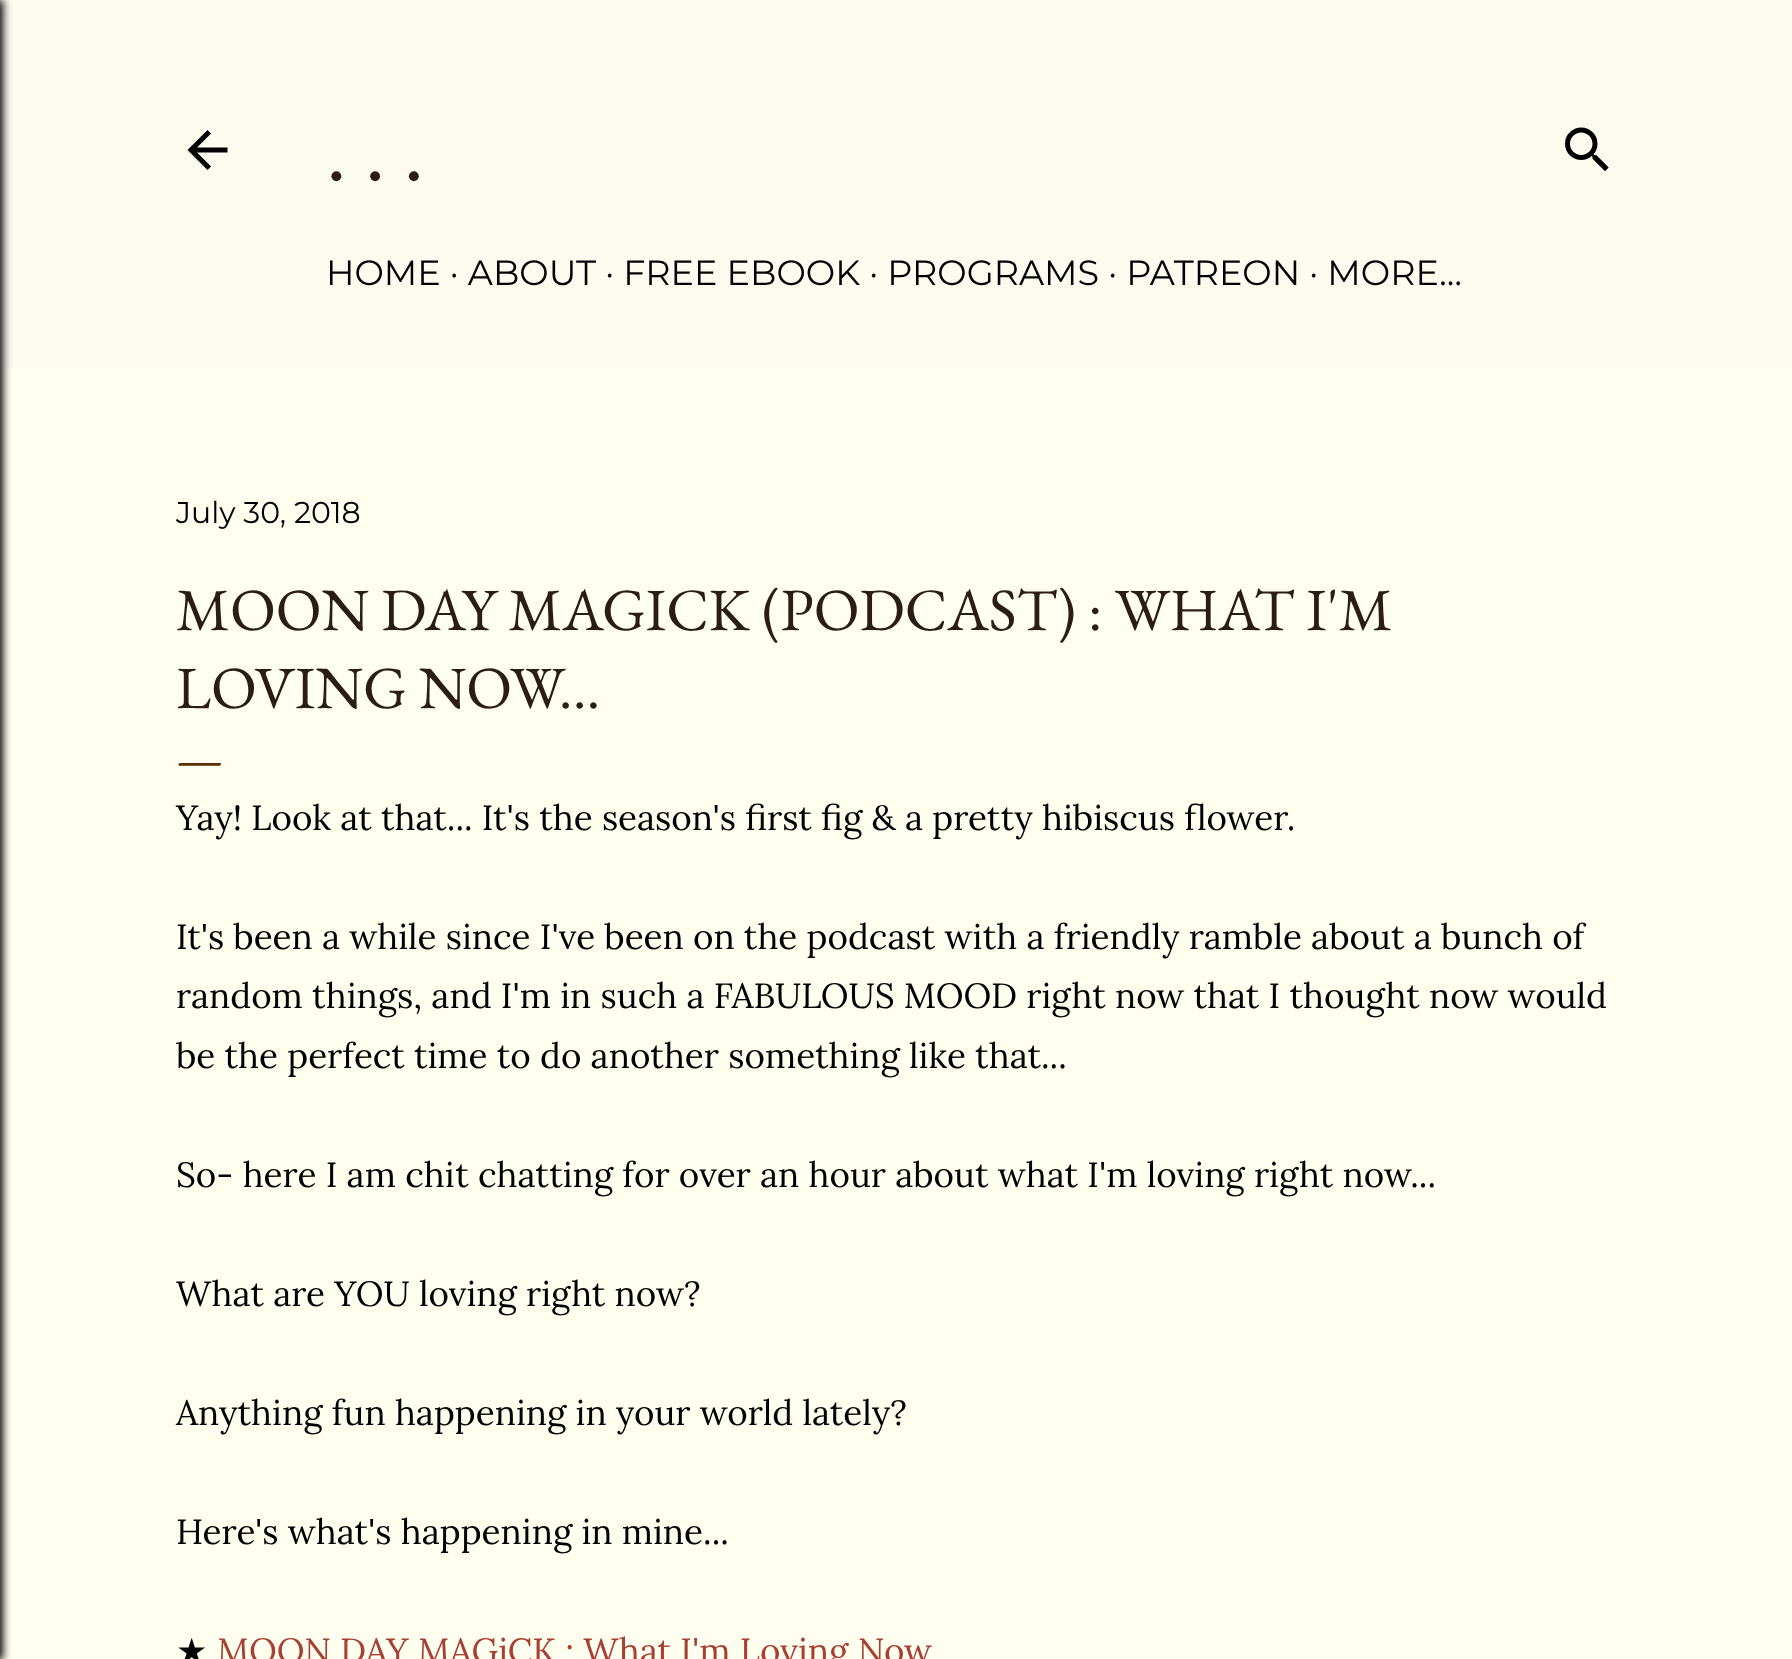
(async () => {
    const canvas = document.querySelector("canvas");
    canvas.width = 1792;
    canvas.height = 1659;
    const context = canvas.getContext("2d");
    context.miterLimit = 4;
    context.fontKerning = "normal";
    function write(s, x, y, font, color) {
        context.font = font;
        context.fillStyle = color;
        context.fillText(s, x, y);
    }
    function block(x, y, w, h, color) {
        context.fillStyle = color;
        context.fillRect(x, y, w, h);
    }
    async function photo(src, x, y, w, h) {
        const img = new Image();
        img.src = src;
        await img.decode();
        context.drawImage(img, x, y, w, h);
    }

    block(0, 0, 1792, 1659, "rgb(255, 255, 240)");
    block(0, 0, 1792, 368, "rgb(253, 250, 240)");
    context.fillStyle = "rgb(0, 0, 0)";
    context.filter = "blur(4px)";
    context.beginPath();
    context.rect(-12, 0, 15, 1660);
    context.fill();
    context.filter = "none";
    await photo("media/1.png", 187, 130, 41, 40);
    await photo("media/2.png", 1565, 127, 44, 45);
    write(". . .", 326, 180, "90px EB Garamond", "rgb(44, 29, 20)");
    write("HOME · ABOUT · FREE EBOOK · PROGRAMS · PATREON · MORE…", 326, 285, "35px Montserrat", "rgb(0, 0, 0)");
    write("July 30, 2018", 176, 523, "30px Montserrat", "rgb(0, 0, 0)");
    write("MOON DAY MAGICK (PODCAST) : WHAT I'M", 176, 630, "60px EB Garamond", "rgb(44, 29, 20)");
    write("LOVING NOW...", 176, 708, "60px EB Garamond", "rgb(44, 29, 20)");
    write("—", 176, 775, "50px EB Garamond", "rgb(92, 44, 5)");
    write("Yay! Look at that... It's the season's first fig & a pretty hibiscus flower.", 176, 830, "35px Lora", "rgb(0, 0, 0)");
    write("It's been a while since I've been on the podcast with a friendly ramble about a bunch of", 176, 949, "35px Lora", "rgb(0, 0, 0)");
    write("random things, and I'm in such a FABULOUS MOOD right now that I thought now would", 176, 1008, "35px Lora", "rgb(0, 0, 0)");
    write("be the perfect time to do another something like that...", 176, 1068, "35px Lora", "rgb(0, 0, 0)");
    write("So- here I am chit chatting for over an hour about what I'm loving right now...", 176, 1187, "35px Lora", "rgb(0, 0, 0)");
    write("What are YOU loving right now?", 176, 1306, "35px Lora", "rgb(0, 0, 0)");
    write("Anything fun happening in your world lately?", 176, 1425, "35px Lora", "rgb(0, 0, 0)");
    write("Here's what's happening in mine...", 176, 1544, "35px Lora", "rgb(0, 0, 0)");
    write("★", 176, 1663, "35px DejaVu Sans", "rgb(0, 0, 0)");
    write("MOON DAY MAGiCK : What I'm Loving Now.", 217, 1663, "35px Lora", "rgb(169, 62, 51)");
})();
